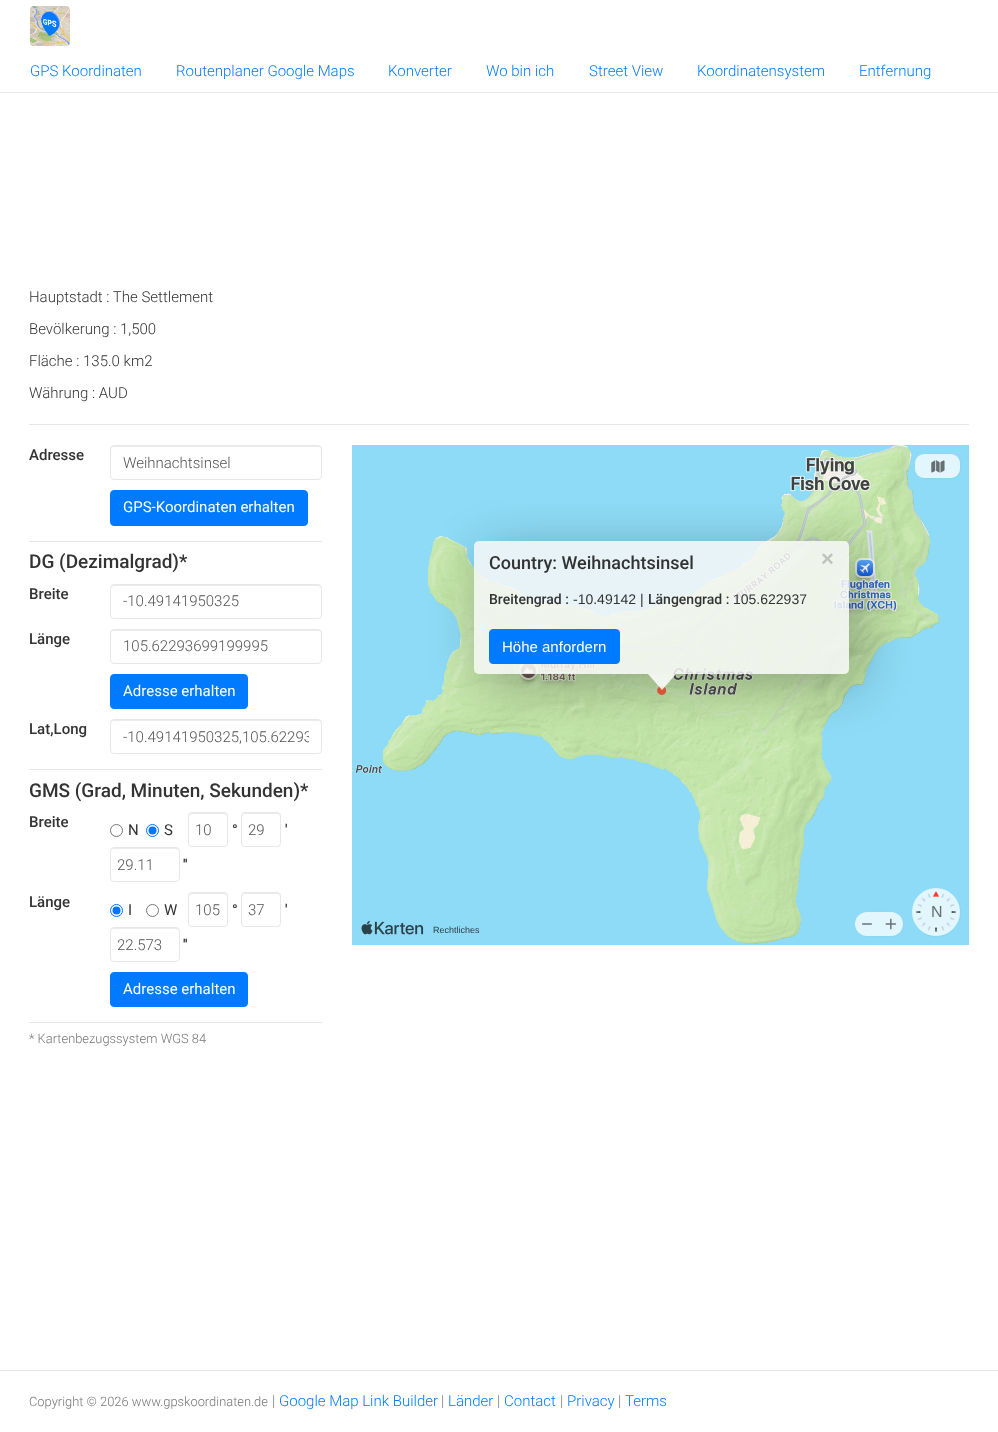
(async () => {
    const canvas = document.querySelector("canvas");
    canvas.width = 998;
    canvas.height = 1432;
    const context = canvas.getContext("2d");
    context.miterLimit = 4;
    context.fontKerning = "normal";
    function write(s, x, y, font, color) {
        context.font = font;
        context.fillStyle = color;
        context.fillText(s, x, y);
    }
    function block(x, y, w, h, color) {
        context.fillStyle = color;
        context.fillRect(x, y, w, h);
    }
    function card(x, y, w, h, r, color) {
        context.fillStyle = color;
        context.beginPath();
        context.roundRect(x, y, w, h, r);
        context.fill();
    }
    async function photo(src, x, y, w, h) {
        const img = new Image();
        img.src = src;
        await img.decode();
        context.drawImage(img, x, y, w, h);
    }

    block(0, 0, 998, 1432, "rgb(255, 255, 255)");
    block(0, 92, 998, 1, "rgb(231, 231, 231)");
    await photo("media/1.png", 30, 6, 40, 40);
    write("GPS Koordinaten", 30, 76, "300 15px Roboto", "rgb(0, 123, 255)");
    write("Routenplaner Google Maps", 176, 76, "300 15px Roboto", "rgb(0, 123, 255)");
    write("Konverter", 388, 76, "300 15px Roboto", "rgb(0, 123, 255)");
    write("Wo bin ich", 486, 76, "300 15px Roboto", "rgb(0, 123, 255)");
    write("Street View", 589, 76, "300 15px Roboto", "rgb(0, 123, 255)");
    write("Koordinatensystem", 697, 76, "300 15px Roboto", "rgb(0, 123, 255)");
    write("Entfernung", 859, 76, "300 15px Roboto", "rgb(0, 123, 255)");
    block(29, 424, 940, 1, "rgb(231, 231, 231)");
    write("Hauptstadt : The Settlement", 29, 302, "300 15px Roboto", "rgb(51, 51, 51)");
    write("Bevölkerung : 1,500", 29, 334, "300 15px Roboto", "rgb(51, 51, 51)");
    write("Fläche : 135.0 km2", 29, 366, "300 15px Roboto", "rgb(51, 51, 51)");
    write("Währung : AUD", 29, 398, "300 15px Roboto", "rgb(51, 51, 51)");
    block(29, 541, 293, 1, "rgb(231, 231, 231)");
    write("Adresse", 29, 460, "500 15px Roboto", "rgb(51, 51, 51)");
    context.fillStyle = "rgb(236, 236, 236)";
    context.beginPath();
    context.moveTo(114, 447);
    context.lineTo(318, 447);
    context.bezierCurveTo(320, 447, 321, 448, 321, 450);
    context.lineTo(321, 449);
    context.bezierCurveTo(321, 447, 320, 446, 318, 446);
    context.lineTo(114, 446);
    context.bezierCurveTo(112, 446, 111, 447, 111, 449);
    context.lineTo(111, 450);
    context.bezierCurveTo(111, 448, 112, 447, 114, 447);
    context.closePath();
    context.fill();
    context.beginPath();
    context.roundRect(110.5, 445.5, 211, 34, 3.5);
    context.strokeStyle = "rgb(231, 231, 231)";
    context.stroke();
    write("Weihnachtsinsel", 123, 468, "300 15px Roboto", "rgb(85, 85, 85)");
    context.fillStyle = "rgb(0, 123, 255)";
    context.beginPath();
    context.roundRect(110.5, 490.5, 197, 35, 3.5);
    context.fill();
    context.strokeStyle = "rgb(0, 123, 255)";
    context.stroke();
    write("GPS-Koordinaten erhalten", 123, 512, "15px Roboto", "rgb(255, 255, 255)");
    block(29, 769, 293, 1, "rgb(231, 231, 231)");
    write("DG (Dezimalgrad)*", 29, 568, "500 19px Roboto", "rgb(51, 51, 51)");
    write("Breite", 29, 599, "500 15px Roboto", "rgb(51, 51, 51)");
    context.fillStyle = "rgb(236, 236, 236)";
    context.beginPath();
    context.moveTo(114, 586);
    context.lineTo(318, 586);
    context.bezierCurveTo(320, 586, 321, 587, 321, 589);
    context.lineTo(321, 588);
    context.bezierCurveTo(321, 586, 320, 585, 318, 585);
    context.lineTo(114, 585);
    context.bezierCurveTo(112, 585, 111, 586, 111, 588);
    context.lineTo(111, 589);
    context.bezierCurveTo(111, 587, 112, 586, 114, 586);
    context.closePath();
    context.fill();
    context.beginPath();
    context.roundRect(110.5, 584.5, 211, 34, 3.5);
    context.strokeStyle = "rgb(231, 231, 231)";
    context.stroke();
    write("-10.49141950325", 123, 606, "300 15px Roboto", "rgb(85, 85, 85)");
    write("Länge", 29, 644, "500 15px Roboto", "rgb(51, 51, 51)");
    context.fillStyle = "rgb(236, 236, 236)";
    context.beginPath();
    context.moveTo(114, 631);
    context.lineTo(318, 631);
    context.bezierCurveTo(320, 631, 321, 632, 321, 634);
    context.lineTo(321, 633);
    context.bezierCurveTo(321, 631, 320, 630, 318, 630);
    context.lineTo(114, 630);
    context.bezierCurveTo(112, 630, 111, 631, 111, 633);
    context.lineTo(111, 634);
    context.bezierCurveTo(111, 632, 112, 631, 114, 631);
    context.closePath();
    context.fill();
    context.beginPath();
    context.roundRect(110.5, 629.5, 211, 34, 3.5);
    context.stroke();
    write("105.62293699199995", 123, 651, "300 15px Roboto", "rgb(85, 85, 85)");
    context.fillStyle = "rgb(0, 123, 255)";
    context.beginPath();
    context.roundRect(110.5, 674.5, 137, 34, 3.5);
    context.fill();
    context.strokeStyle = "rgb(0, 123, 255)";
    context.stroke();
    write("Adresse erhalten", 123, 696, "15px Roboto", "rgb(255, 255, 255)");
    write("Lat,Long", 29, 734, "500 15px Roboto", "rgb(51, 51, 51)");
    context.fillStyle = "rgb(236, 236, 236)";
    context.beginPath();
    context.moveTo(114, 721);
    context.lineTo(318, 721);
    context.bezierCurveTo(320, 721, 321, 722, 321, 724);
    context.lineTo(321, 723);
    context.bezierCurveTo(321, 721, 320, 720, 318, 720);
    context.lineTo(114, 720);
    context.bezierCurveTo(112, 720, 111, 721, 111, 723);
    context.lineTo(111, 724);
    context.bezierCurveTo(111, 722, 112, 721, 114, 721);
    context.closePath();
    context.fill();
    context.beginPath();
    context.roundRect(110.5, 719.5, 211, 34, 3.5);
    context.strokeStyle = "rgb(231, 231, 231)";
    context.stroke();
    context.save();
    context.beginPath();
    context.rect(123, 728, 186, 18);
    context.clip();
    write("-10.49141950325,105.62293", 123, 742, "300 15px Roboto", "rgb(85, 85, 85)");
    context.restore();
    block(29, 1022, 293, 1, "rgb(231, 231, 231)");
    write("GMS (Grad, Minuten, Sekunden)*", 29, 797, "500 19px Roboto", "rgb(51, 51, 51)");
    write("Breite", 29, 827, "500 15px Roboto", "rgb(51, 51, 51)");
    context.beginPath();
    context.arc(116.5, 830.5, 6, 0, Math.PI * 2);
    context.strokeStyle = "rgb(118, 118, 118)";
    context.stroke();
    write("N", 128, 835, "15px Roboto", "rgb(51, 51, 51)");
    context.beginPath();
    context.arc(152.5, 830.5, 6, 0, Math.PI * 2);
    context.strokeStyle = "rgb(0, 117, 255)";
    context.stroke();
    context.fillStyle = "rgb(0, 117, 255)";
    context.beginPath();
    context.arc(152.5, 830.5, 4, 0, Math.PI * 2);
    context.fill();
    write("S", 164, 835, "15px Roboto", "rgb(51, 51, 51)");
    context.fillStyle = "rgb(236, 236, 236)";
    context.beginPath();
    context.moveTo(192, 814);
    context.lineTo(225, 814);
    context.lineTo(227, 816);
    context.bezierCurveTo(227, 814.5, 225.5, 813, 224, 813);
    context.lineTo(192, 813);
    context.bezierCurveTo(190.5, 813, 189, 814.5, 189, 816);
    context.lineTo(189, 816.5);
    context.bezierCurveTo(189.5, 815, 190.5, 814, 192, 814);
    context.closePath();
    context.moveTo(189, 843.5);
    context.lineTo(189, 840);
    context.closePath();
    context.fill("evenodd");
    context.beginPath();
    context.roundRect(188.5, 812.5, 39, 34, 3.5);
    context.strokeStyle = "rgb(231, 231, 231)";
    context.stroke();
    write("10", 195, 835, "300 15px Roboto", "rgb(85, 85, 85)");
    write("°", 232, 835, "500 15px Roboto", "rgb(51, 51, 51)");
    context.fillStyle = "rgb(236, 236, 236)";
    context.beginPath();
    context.moveTo(245, 814);
    context.lineTo(278, 814);
    context.lineTo(280, 816);
    context.bezierCurveTo(280, 814.5, 278.5, 813, 277, 813);
    context.lineTo(245, 813);
    context.bezierCurveTo(243.5, 813, 242, 814.5, 242, 816);
    context.lineTo(242, 816.5);
    context.bezierCurveTo(242.5, 815, 243.5, 814, 245, 814);
    context.closePath();
    context.moveTo(242, 843.5);
    context.lineTo(242, 840);
    context.closePath();
    context.fill("evenodd");
    context.beginPath();
    context.roundRect(241.5, 812.5, 39, 34, 3.5);
    context.stroke();
    write("29", 248, 835, "300 15px Roboto", "rgb(85, 85, 85)");
    write("'", 285, 835, "500 15px Roboto", "rgb(51, 51, 51)");
    context.fillStyle = "rgb(236, 236, 236)";
    context.beginPath();
    context.moveTo(114, 849);
    context.lineTo(176, 849);
    context.bezierCurveTo(178, 849, 179, 850, 179, 852);
    context.bezierCurveTo(179, 845, 170, 848, 166, 848);
    context.lineTo(124, 848);
    context.bezierCurveTo(120, 848, 111, 845, 111, 852);
    context.bezierCurveTo(111, 850, 112, 849, 114, 849);
    context.closePath();
    context.fill();
    context.beginPath();
    context.roundRect(110.5, 847.5, 69, 34, 3.5);
    context.stroke();
    write("29.11", 117, 870, "300 15px Roboto", "rgb(85, 85, 85)");
    write("''", 183, 870, "500 15px Roboto", "rgb(51, 51, 51)");
    write("Länge", 29, 907, "500 15px Roboto", "rgb(51, 51, 51)");
    context.beginPath();
    context.arc(116.5, 910.5, 6, 0, Math.PI * 2);
    context.strokeStyle = "rgb(0, 117, 255)";
    context.stroke();
    context.fillStyle = "rgb(0, 117, 255)";
    context.beginPath();
    context.arc(116.5, 910.5, 4, 0, Math.PI * 2);
    context.fill();
    write("I", 128, 915, "15px Roboto", "rgb(51, 51, 51)");
    context.beginPath();
    context.arc(152.5, 910.5, 6, 0, Math.PI * 2);
    context.strokeStyle = "rgb(118, 118, 118)";
    context.stroke();
    write("W", 164, 915, "15px Roboto", "rgb(51, 51, 51)");
    context.fillStyle = "rgb(236, 236, 236)";
    context.beginPath();
    context.moveTo(192, 894);
    context.lineTo(225, 894);
    context.lineTo(227, 896);
    context.bezierCurveTo(227, 894.5, 225.5, 893, 224, 893);
    context.lineTo(192, 893);
    context.bezierCurveTo(190.5, 893, 189, 894.5, 189, 896);
    context.lineTo(189, 896.5);
    context.bezierCurveTo(189.5, 895, 190.5, 894, 192, 894);
    context.closePath();
    context.moveTo(189, 923.5);
    context.lineTo(189, 920);
    context.closePath();
    context.fill("evenodd");
    context.beginPath();
    context.roundRect(188.5, 892.5, 39, 34, 3.5);
    context.strokeStyle = "rgb(231, 231, 231)";
    context.stroke();
    write("105", 195, 915, "300 15px Roboto", "rgb(85, 85, 85)");
    write("°", 232, 915, "500 15px Roboto", "rgb(51, 51, 51)");
    context.fillStyle = "rgb(236, 236, 236)";
    context.beginPath();
    context.moveTo(245, 894);
    context.lineTo(278, 894);
    context.lineTo(280, 896);
    context.bezierCurveTo(280, 894.5, 278.5, 893, 277, 893);
    context.lineTo(245, 893);
    context.bezierCurveTo(243.5, 893, 242, 894.5, 242, 896);
    context.lineTo(242, 896.5);
    context.bezierCurveTo(242.5, 895, 243.5, 894, 245, 894);
    context.closePath();
    context.moveTo(242, 923.5);
    context.lineTo(242, 920);
    context.closePath();
    context.fill("evenodd");
    context.beginPath();
    context.roundRect(241.5, 892.5, 39, 34, 3.5);
    context.stroke();
    write("37", 248, 915, "300 15px Roboto", "rgb(85, 85, 85)");
    write("'", 285, 915, "500 15px Roboto", "rgb(51, 51, 51)");
    context.fillStyle = "rgb(236, 236, 236)";
    context.beginPath();
    context.moveTo(114, 929);
    context.lineTo(176, 929);
    context.bezierCurveTo(178, 929, 179, 930, 179, 932);
    context.bezierCurveTo(179, 925, 170, 928, 166, 928);
    context.lineTo(124, 928);
    context.bezierCurveTo(120, 928, 111, 925, 111, 932);
    context.bezierCurveTo(111, 930, 112, 929, 114, 929);
    context.closePath();
    context.fill();
    context.beginPath();
    context.roundRect(110.5, 927.5, 69, 34, 3.5);
    context.stroke();
    write("22.573", 117, 950, "300 15px Roboto", "rgb(85, 85, 85)");
    write("''", 183, 950, "500 15px Roboto", "rgb(51, 51, 51)");
    context.fillStyle = "rgb(0, 123, 255)";
    context.beginPath();
    context.roundRect(110.5, 972.5, 137, 34, 3.5);
    context.fill();
    context.strokeStyle = "rgb(0, 123, 255)";
    context.stroke();
    write("Adresse erhalten", 123, 994, "15px Roboto", "rgb(255, 255, 255)");
    write("* Kartenbezugssystem WGS 84", 29, 1043, "300 12.9px Roboto", "rgb(119, 119, 119)");
    await photo("media/2.png", 352, 445, 617, 500);
    await photo("media/8.png", 657, 686, 10, 9);
    context.save();
    context.beginPath();
    context.moveTo(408, 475);
    context.lineTo(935, 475);
    context.lineTo(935, 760);
    context.lineTo(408, 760);
    context.closePath();
    context.moveTo(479, 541);
    context.lineTo(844, 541);
    context.bezierCurveTo(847, 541, 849, 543, 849, 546);
    context.lineTo(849, 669);
    context.bezierCurveTo(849, 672, 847, 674, 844, 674);
    context.lineTo(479, 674);
    context.bezierCurveTo(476, 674, 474, 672, 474, 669);
    context.lineTo(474, 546);
    context.bezierCurveTo(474, 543, 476, 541, 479, 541);
    context.closePath();
    context.clip("evenodd");
    context.fillStyle = "rgba(0, 0, 0, 0.29)";
    context.filter = "blur(25px)";
    context.beginPath();
    context.roundRect(484, 551, 375, 133, 5);
    context.fill();
    context.filter = "none";
    context.restore();
    card(474, 541, 375, 133, 5, "rgba(247, 247, 247, 0.85)");
    write("Country: Weihnachtsinsel", 489, 569, "500 18px Roboto", "rgb(51, 51, 51)");
    write("×", 821, 566, "bold 22px Liberation Sans", "rgb(191, 195, 188)");
    write("Breitengrad :", 489, 604, "500 14px Roboto", "rgb(51, 51, 51)");
    write("-10.49142 |", 573, 604, "14px Liberation Sans", "rgb(51, 51, 51)");
    write("Längengrad :", 648, 604, "500 14px Roboto", "rgb(51, 51, 51)");
    write("105.622937", 733, 604, "14px Liberation Sans", "rgb(51, 51, 51)");
    context.fillStyle = "rgb(0, 123, 255)";
    context.beginPath();
    context.roundRect(489.5, 629.5, 130, 34, 3.5);
    context.fill();
    context.stroke();
    write("Höhe anfordern", 502, 652, "15px Liberation Sans", "rgb(255, 255, 255)");
    context.fillStyle = "rgba(255, 255, 255, 0.85)";
    context.beginPath();
    context.moveTo(648, 674);
    context.lineTo(676, 674);
    context.lineTo(662, 690);
    context.closePath();
    context.fill();
    context.beginPath();
    context.roundRect(915.25, 454.25, 45.5, 24.5, 9.75);
    context.strokeStyle = "rgb(134, 208, 234)";
    context.lineWidth = 0.5;
    context.stroke();
    card(915, 454, 45, 24, 9, "rgba(255, 255, 255, 0.75)");
    await photo("media/3.png", 931, 460, 14, 13);
    context.beginPath();
    context.roundRect(855.25, 912.25, 48.5, 24.5, 12.25);
    context.stroke();
    card(855, 912, 48, 24, 12, "rgba(255, 255, 255, 0.75)");
    await photo("media/4.png", 862, 923, 10, 2);
    await photo("media/5.png", 885, 918, 11, 12);
    context.beginPath();
    context.arc(936.5, 912.5, 24.25, 0, Math.PI * 2);
    context.stroke();
    context.beginPath();
    context.arc(936, 912, 24, 0, Math.PI * 2);
    context.fill();
    await photo("media/6.png", 916, 891, 40, 41);
    write("N", 931, 917, "16px Liberation Sans", "rgb(102, 111, 114)");
    await photo("media/7.png", 361, 920, 63, 15);
    write("Rechtliches", 433, 933, "9px Liberation Sans", "rgb(42, 66, 74)");
    block(0, 1370, 998, 1, "rgb(231, 231, 231)");
    write("Copyright © 2026 www.gpskoordinaten.de", 29, 1406, "300 12.9px Roboto", "rgb(119, 119, 119)");
    write("|", 272, 1406, "300 15px Roboto", "rgb(119, 119, 119)");
    write("Google Map Link Builder", 279, 1406, "300 15px Roboto", "rgb(0, 123, 255)");
    write("|", 441, 1406, "300 15px Roboto", "rgb(119, 119, 119)");
    write("Länder", 448, 1406, "300 15px Roboto", "rgb(0, 123, 255)");
    write("|", 497, 1406, "300 15px Roboto", "rgb(119, 119, 119)");
    write("Contact", 504, 1406, "300 15px Roboto", "rgb(0, 123, 255)");
    write("|", 560, 1406, "300 15px Roboto", "rgb(119, 119, 119)");
    write("Privacy", 567, 1406, "300 15px Roboto", "rgb(0, 123, 255)");
    write("|", 618, 1406, "300 15px Roboto", "rgb(119, 119, 119)");
    write("Terms", 625, 1406, "300 15px Roboto", "rgb(0, 123, 255)");
})();
